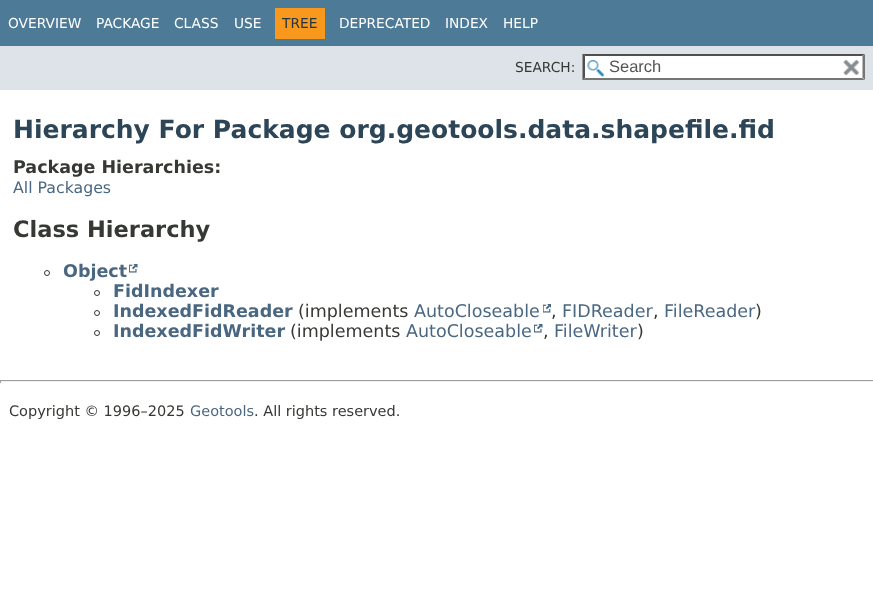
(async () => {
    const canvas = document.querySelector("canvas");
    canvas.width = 873;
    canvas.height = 607;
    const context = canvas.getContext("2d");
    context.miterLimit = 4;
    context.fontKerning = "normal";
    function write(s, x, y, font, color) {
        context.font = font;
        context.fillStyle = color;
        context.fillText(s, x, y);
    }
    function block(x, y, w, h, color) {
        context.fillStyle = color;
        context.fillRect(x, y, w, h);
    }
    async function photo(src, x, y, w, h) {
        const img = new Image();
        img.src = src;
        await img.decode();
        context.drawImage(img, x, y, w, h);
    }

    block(0, 0, 873, 607, "rgb(255, 255, 255)");
    block(0, 0, 873, 46, "rgb(77, 122, 151)");
    write("OVERVIEW", 8, 28, "13.75px DejaVu Sans", "rgb(255, 255, 255)");
    write("PACKAGE", 96, 28, "13.75px DejaVu Sans", "rgb(255, 255, 255)");
    write("CLASS", 174, 28, "13.75px DejaVu Sans", "rgb(255, 255, 255)");
    write("USE", 234, 28, "13.75px DejaVu Sans", "rgb(255, 255, 255)");
    block(275, 8, 50, 31, "rgb(248, 152, 29)");
    write("TREE", 282, 28, "13.75px DejaVu Sans", "rgb(37, 52, 65)");
    write("DEPRECATED", 339, 28, "13.75px DejaVu Sans", "rgb(255, 255, 255)");
    write("INDEX", 445, 28, "13.75px DejaVu Sans", "rgb(255, 255, 255)");
    write("HELP", 503, 28, "13.75px DejaVu Sans", "rgb(255, 255, 255)");
    block(0, 46, 873, 44, "rgb(222, 227, 233)");
    write("SEARCH:", 515, 72, "13.75px DejaVu Sans", "rgb(53, 56, 51)");
    block(583, 54, 282, 26, "rgb(255, 255, 255)");
    await photo("media/1.png", 587, 60, 17, 17);
    context.fillStyle = "rgb(79, 79, 79)";
    context.beginPath();
    context.moveTo(582, 54);
    context.lineTo(865, 54);
    context.lineTo(862, 56);
    context.lineTo(585, 56);
    context.closePath();
    context.fill();
    context.fillStyle = "rgb(118, 118, 118)";
    context.beginPath();
    context.moveTo(865, 54);
    context.lineTo(865, 80);
    context.lineTo(862.5, 77.5);
    context.lineTo(862.5, 56);
    context.closePath();
    context.fill();
    context.beginPath();
    context.moveTo(865, 80);
    context.lineTo(582, 80);
    context.lineTo(585, 78);
    context.lineTo(862, 78);
    context.closePath();
    context.fill();
    context.fillStyle = "rgb(79, 79, 79)";
    context.beginPath();
    context.moveTo(582.5, 80);
    context.lineTo(582.5, 54);
    context.lineTo(585, 56);
    context.lineTo(585, 77.5);
    context.closePath();
    context.fill();
    write("Search", 609, 72, "16.5px Liberation Sans", "rgb(84, 84, 84)");
    await photo("media/2.png", 843, 60, 16, 15);
    write("Hierarchy For Package org.geotools.data.shapefile.fid", 13, 138, "bold 25px DejaVu Sans", "rgb(44, 69, 87)");
    write("Package Hierarchies:", 13, 173, "bold 17.5px DejaVu Sans", "rgb(53, 56, 51)");
    write("All Packages", 13, 193, "15.75px DejaVu Sans", "rgb(74, 103, 130)");
    write("Class Hierarchy", 13, 237, "bold 22.5px DejaVu Sans", "rgb(53, 56, 51)");
    context.beginPath();
    context.arc(47, 273, 2.5, 0, Math.PI * 2);
    context.strokeStyle = "rgb(53, 56, 51)";
    context.stroke();
    write("Object", 63, 277, "bold 17.5px DejaVu Sans", "rgb(74, 103, 130)");
    await photo("media/3.png", 129, 264, 9, 9);
    context.beginPath();
    context.arc(97, 293, 2.5, 0, Math.PI * 2);
    context.stroke();
    write("FidIndexer", 113, 297, "bold 17.5px DejaVu Sans", "rgb(74, 103, 130)");
    context.beginPath();
    context.arc(97, 313, 2.5, 0, Math.PI * 2);
    context.stroke();
    write("IndexedFidReader", 113, 317, "bold 17.5px DejaVu Sans", "rgb(74, 103, 130)");
    write("(implements", 298, 317, "17.5px DejaVu Sans", "rgb(53, 56, 51)");
    write("AutoCloseable", 414, 317, "17.5px DejaVu Sans", "rgb(74, 103, 130)");
    await photo("media/4.png", 543, 304, 8, 9);
    write("FIDReader", 562, 317, "17.5px DejaVu Sans", "rgb(74, 103, 130)");
    write("FileReader", 664, 317, "17.5px DejaVu Sans", "rgb(74, 103, 130)");
    write(")", 755, 317, "17.5px DejaVu Sans", "rgb(53, 56, 51)");
    write(",", 551, 317, "17.5px DejaVu Sans", "rgb(53, 56, 51)");
    write(",", 653, 317, "17.5px DejaVu Sans", "rgb(53, 56, 51)");
    context.beginPath();
    context.arc(97, 333, 2.5, 0, Math.PI * 2);
    context.stroke();
    write("IndexedFidWriter", 113, 337, "bold 17.5px DejaVu Sans", "rgb(74, 103, 130)");
    write("(implements", 290, 337, "17.5px DejaVu Sans", "rgb(53, 56, 51)");
    write("AutoCloseable", 406, 337, "17.5px DejaVu Sans", "rgb(74, 103, 130)");
    await photo("media/3.png", 534, 324, 9, 9);
    write("FileWriter", 554, 337, "17.5px DejaVu Sans", "rgb(74, 103, 130)");
    write(")", 637, 337, "17.5px DejaVu Sans", "rgb(53, 56, 51)");
    write(",", 543, 337, "17.5px DejaVu Sans", "rgb(53, 56, 51)");
    block(0, 380, 873, 1, "rgb(159, 159, 159)");
    block(0, 381, 873, 1, "rgb(238, 238, 238)");
    block(0, 380, 1, 3, "rgb(159, 159, 159)");
    write("Copyright © 1996–2025", 9, 416, "14.5px DejaVu Sans", "rgb(53, 56, 51)");
    write("Geotools", 190, 416, "14.5px DejaVu Sans", "rgb(74, 103, 130)");
    write(". All rights reserved.", 254, 416, "14.5px DejaVu Sans", "rgb(53, 56, 51)");
})();
